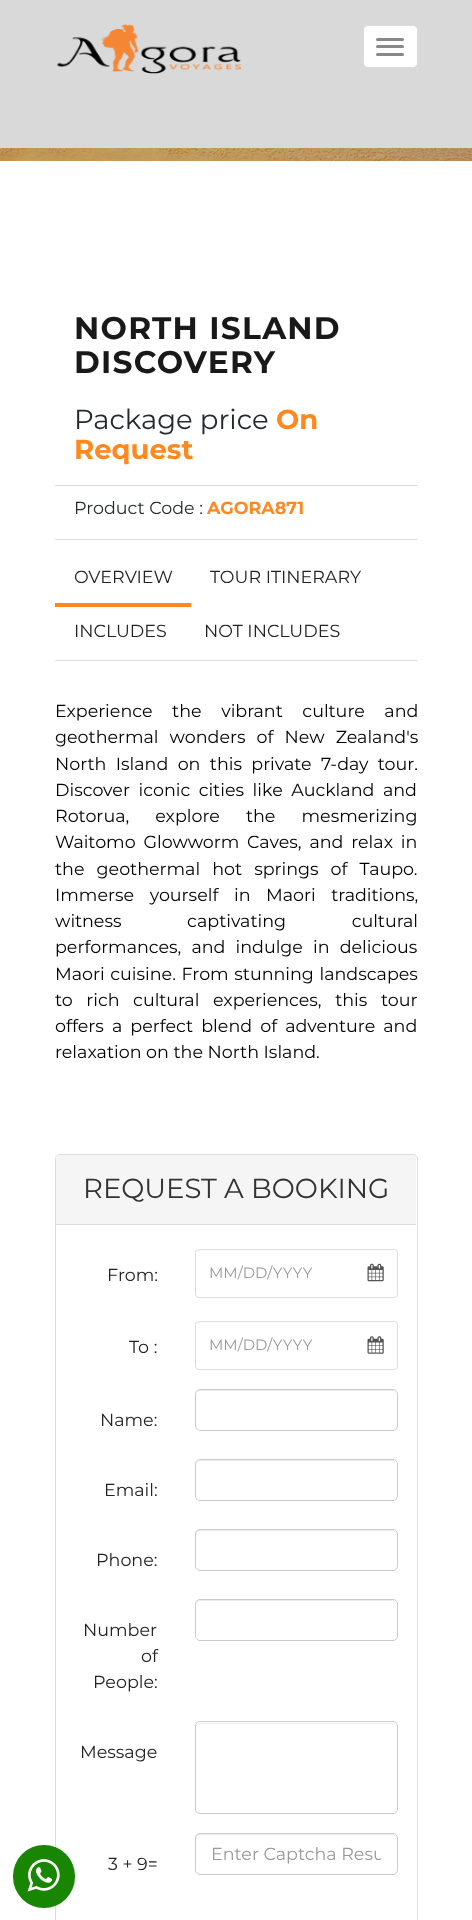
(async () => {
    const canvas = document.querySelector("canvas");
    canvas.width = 472;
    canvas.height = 1920;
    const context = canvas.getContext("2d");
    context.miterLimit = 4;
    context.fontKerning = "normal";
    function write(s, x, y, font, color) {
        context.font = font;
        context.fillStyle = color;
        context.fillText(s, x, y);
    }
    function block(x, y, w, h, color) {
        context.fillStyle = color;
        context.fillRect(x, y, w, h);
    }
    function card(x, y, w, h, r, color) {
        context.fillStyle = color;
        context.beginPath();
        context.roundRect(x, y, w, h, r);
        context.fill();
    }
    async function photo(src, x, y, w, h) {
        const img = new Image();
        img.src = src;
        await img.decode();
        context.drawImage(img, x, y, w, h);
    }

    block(0, 0, 472, 1920, "rgb(255, 255, 255)");
    block(0, 0, 472, 148, "rgb(217, 217, 217)");
    await photo("media/1.png", 56, 24, 185, 50);
    context.fillStyle = "rgb(255, 255, 255)";
    context.beginPath();
    context.roundRect(363.5, 25.5, 54, 42, 4.5);
    context.fill();
    context.strokeStyle = "rgb(221, 221, 221)";
    context.stroke();
    card(376, 38, 28, 3, 1.5, "rgb(136, 136, 136)");
    card(376, 45, 28, 3, 1.5, "rgb(136, 136, 136)");
    card(376, 53, 28, 3, 1.5, "rgb(136, 136, 136)");
    await photo("media/2.png", 0, 148, 472, 13);
    context.beginPath();
    context.roundRect(55.5, 1154.5, 362, 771, 4.5);
    context.stroke();
    card(13, 1845, 62, 63, 31, "rgb(24, 134, 0)");
    await photo("media/3.png", 27, 1859, 33, 33);
    context.letterSpacing = "1.25px";
    write("NORTH ISLAND", 74, 339, "bold 31.25px Montserrat", "rgb(25, 25, 25)");
    write("DISCOVERY", 74, 373, "bold 31.25px Montserrat", "rgb(25, 25, 25)");
    block(55, 485, 363, 1, "rgb(220, 220, 220)");
    context.letterSpacing = "0px";
    write("Package price", 74, 429, "27.5px Montserrat", "rgb(38, 42, 46)");
    write("On", 276, 429, "bold 27.5px Montserrat", "rgb(255, 137, 30)");
    write("Request", 74, 459, "bold 27.5px Montserrat", "rgb(255, 137, 30)");
    block(55, 539, 363, 1, "rgb(220, 220, 220)");
    write("Product Code :", 74, 514, "17.5px Montserrat", "rgb(38, 42, 46)");
    write("AGORA871", 207, 514, "bold 17.5px Montserrat", "rgb(255, 137, 30)");
    block(55, 660, 363, 1, "rgb(222, 222, 222)");
    block(55, 603, 136, 4, "rgb(255, 137, 30)");
    write("OVERVIEW", 74, 583, "17.5px Montserrat", "rgb(34, 34, 34)");
    write("TOUR ITINERARY", 210, 583, "17.5px Montserrat", "rgb(34, 34, 34)");
    write("INCLUDES", 74, 637, "17.5px Montserrat", "rgb(34, 34, 34)");
    write("NOT INCLUDES", 204, 637, "17.5px Montserrat", "rgb(34, 34, 34)");
    context.wordSpacing = "15px";
    write("Experience the vibrant culture and", 55, 717, "17.5px Montserrat", "rgb(0, 0, 0)");
    context.wordSpacing = "6.5px";
    write("geothermal wonders of New Zealand's", 55, 743, "17.5px Montserrat", "rgb(0, 0, 0)");
    context.wordSpacing = "4.75px";
    write("North Island on this private 7-day tour.", 55, 770, "17.5px Montserrat", "rgb(0, 0, 0)");
    context.wordSpacing = "4px";
    write("Discover iconic cities like Auckland and", 55, 796, "17.5px Montserrat", "rgb(0, 0, 0)");
    context.wordSpacing = "21.5px";
    write("Rotorua, explore the mesmerizing", 55, 822, "17.5px Montserrat", "rgb(0, 0, 0)");
    context.wordSpacing = "3.25px";
    write("Waitomo Glowworm Caves, and relax in", 55, 848, "17.5px Montserrat", "rgb(0, 0, 0)");
    context.wordSpacing = "7.5px";
    write("the geothermal hot springs of Taupo.", 55, 875, "17.5px Montserrat", "rgb(0, 0, 0)");
    context.wordSpacing = "11px";
    write("Immerse yourself in Maori traditions,", 55, 901, "17.5px Montserrat", "rgb(0, 0, 0)");
    context.wordSpacing = "61px";
    write("witness captivating cultural", 55, 927, "17.5px Montserrat", "rgb(0, 0, 0)");
    context.wordSpacing = "5.5px";
    write("performances, and indulge in delicious", 55, 953, "17.5px Montserrat", "rgb(0, 0, 0)");
    context.wordSpacing = "1px";
    write("Maori cuisine. From stunning landscapes", 55, 980, "17.5px Montserrat", "rgb(0, 0, 0)");
    context.wordSpacing = "9px";
    write("to rich cultural experiences, this tour", 55, 1006, "17.5px Montserrat", "rgb(0, 0, 0)");
    context.wordSpacing = "3.5px";
    write("offers a perfect blend of adventure and", 55, 1032, "17.5px Montserrat", "rgb(0, 0, 0)");
    context.wordSpacing = "0px";
    write("relaxation on the North Island.", 55, 1058, "17.5px Montserrat", "rgb(0, 0, 0)");
    context.fillStyle = "rgb(245, 245, 245)";
    context.beginPath();
    context.roundRect(56, 1155, 360, 70, [4, 4, 0, 0]);
    context.fill();
    block(56, 1224, 360, 1, "rgb(221, 221, 221)");
    write("REQUEST A BOOKING", 83, 1198, "27.5px Montserrat", "rgb(51, 51, 51)");
    write("From:", 107, 1281, "17.5px Montserrat", "rgb(34, 34, 34)");
    context.beginPath();
    context.roundRect(195.5, 1249.5, 202, 48, 3.5);
    context.strokeStyle = "rgb(222, 222, 222)";
    context.stroke();
    write("MM/DD/YYYY", 209, 1278, "15px Montserrat", "rgb(153, 153, 153)");
    await photo("media/4.png", 367, 1263, 17, 19);
    write("To :", 129, 1353, "17.5px Montserrat", "rgb(34, 34, 34)");
    context.beginPath();
    context.roundRect(195.5, 1321.5, 202, 48, 3.5);
    context.stroke();
    write("MM/DD/YYYY", 209, 1350, "15px Montserrat", "rgb(153, 153, 153)");
    await photo("media/5.png", 367, 1336, 17, 18);
    write("Name:", 100, 1426, "17.5px Montserrat", "rgb(34, 34, 34)");
    context.fillStyle = "rgb(236, 236, 236)";
    context.beginPath();
    context.moveTo(200, 1391);
    context.lineTo(392, 1391);
    context.bezierCurveTo(395, 1391, 396, 1393, 396, 1395);
    context.lineTo(396, 1394);
    context.bezierCurveTo(396, 1392, 394, 1390, 392, 1390);
    context.lineTo(200, 1390);
    context.bezierCurveTo(198, 1390, 196, 1392, 196, 1394);
    context.lineTo(196, 1395);
    context.bezierCurveTo(196, 1393, 198, 1391, 200, 1391);
    context.closePath();
    context.fill();
    context.beginPath();
    context.roundRect(195.5, 1389.5, 202, 41, 4.5);
    context.strokeStyle = "rgb(204, 204, 204)";
    context.stroke();
    write("Email:", 104, 1496, "17.5px Montserrat", "rgb(34, 34, 34)");
    context.fillStyle = "rgb(236, 236, 236)";
    context.beginPath();
    context.moveTo(200, 1461);
    context.lineTo(392, 1461);
    context.bezierCurveTo(395, 1461, 396, 1463, 396, 1465);
    context.lineTo(396, 1464);
    context.bezierCurveTo(396, 1462, 394, 1460, 392, 1460);
    context.lineTo(200, 1460);
    context.bezierCurveTo(198, 1460, 196, 1462, 196, 1464);
    context.lineTo(196, 1465);
    context.bezierCurveTo(196, 1463, 198, 1461, 200, 1461);
    context.closePath();
    context.fill();
    context.beginPath();
    context.roundRect(195.5, 1459.5, 202, 41, 4.5);
    context.stroke();
    write("Phone:", 96, 1566, "17.5px Montserrat", "rgb(34, 34, 34)");
    context.fillStyle = "rgb(236, 236, 236)";
    context.beginPath();
    context.moveTo(200, 1531);
    context.lineTo(392, 1531);
    context.bezierCurveTo(395, 1531, 396, 1533, 396, 1535);
    context.lineTo(396, 1534);
    context.bezierCurveTo(396, 1532, 394, 1530, 392, 1530);
    context.lineTo(200, 1530);
    context.bezierCurveTo(198, 1530, 196, 1532, 196, 1534);
    context.lineTo(196, 1535);
    context.bezierCurveTo(196, 1533, 198, 1531, 200, 1531);
    context.closePath();
    context.fill();
    context.beginPath();
    context.roundRect(195.5, 1529.5, 202, 41, 4.5);
    context.stroke();
    write("Number", 83, 1636, "17.5px Montserrat", "rgb(34, 34, 34)");
    write("of", 141, 1662, "17.5px Montserrat", "rgb(34, 34, 34)");
    write("People:", 93, 1688, "17.5px Montserrat", "rgb(34, 34, 34)");
    context.fillStyle = "rgb(236, 236, 236)";
    context.beginPath();
    context.moveTo(200, 1601);
    context.lineTo(392, 1601);
    context.bezierCurveTo(395, 1601, 396, 1603, 396, 1605);
    context.lineTo(396, 1604);
    context.bezierCurveTo(396, 1602, 394, 1600, 392, 1600);
    context.lineTo(200, 1600);
    context.bezierCurveTo(198, 1600, 196, 1602, 196, 1604);
    context.lineTo(196, 1605);
    context.bezierCurveTo(196, 1603, 198, 1601, 200, 1601);
    context.closePath();
    context.fill();
    context.beginPath();
    context.roundRect(195.5, 1599.5, 202, 41, 4.5);
    context.stroke();
    write("Message", 80, 1758, "17.5px Montserrat", "rgb(34, 34, 34)");
    context.fillStyle = "rgb(236, 236, 236)";
    context.beginPath();
    context.moveTo(200, 1724);
    context.lineTo(392, 1724);
    context.bezierCurveTo(395, 1724, 396, 1725, 396, 1728);
    context.lineTo(396, 1727);
    context.bezierCurveTo(396, 1725, 394, 1723, 392, 1723);
    context.lineTo(200, 1723);
    context.bezierCurveTo(198, 1723, 196, 1725, 196, 1727);
    context.lineTo(196, 1728);
    context.bezierCurveTo(196, 1725, 198, 1724, 200, 1724);
    context.closePath();
    context.fill();
    context.beginPath();
    context.roundRect(195.5, 1721.5, 202, 92, 4.5);
    context.stroke();
    write("3 + 9=", 108, 1870, "17.5px Montserrat", "rgb(34, 34, 34)");
    context.fillStyle = "rgb(236, 236, 236)";
    context.beginPath();
    context.moveTo(200, 1835);
    context.lineTo(392, 1835);
    context.bezierCurveTo(395, 1835, 396, 1837, 396, 1839);
    context.lineTo(396, 1838);
    context.bezierCurveTo(396, 1836, 394, 1834, 392, 1834);
    context.lineTo(200, 1834);
    context.bezierCurveTo(198, 1834, 196, 1836, 196, 1838);
    context.lineTo(196, 1839);
    context.bezierCurveTo(196, 1837, 198, 1835, 200, 1835);
    context.closePath();
    context.fill();
    context.beginPath();
    context.roundRect(195.5, 1833.5, 202, 41, 4.5);
    context.stroke();
    context.save();
    context.beginPath();
    context.rect(211, 1843, 170, 22);
    context.clip();
    write("Enter Captcha Resu", 211, 1860, "17.5px Montserrat", "rgb(153, 153, 153)");
    context.restore();
})();
